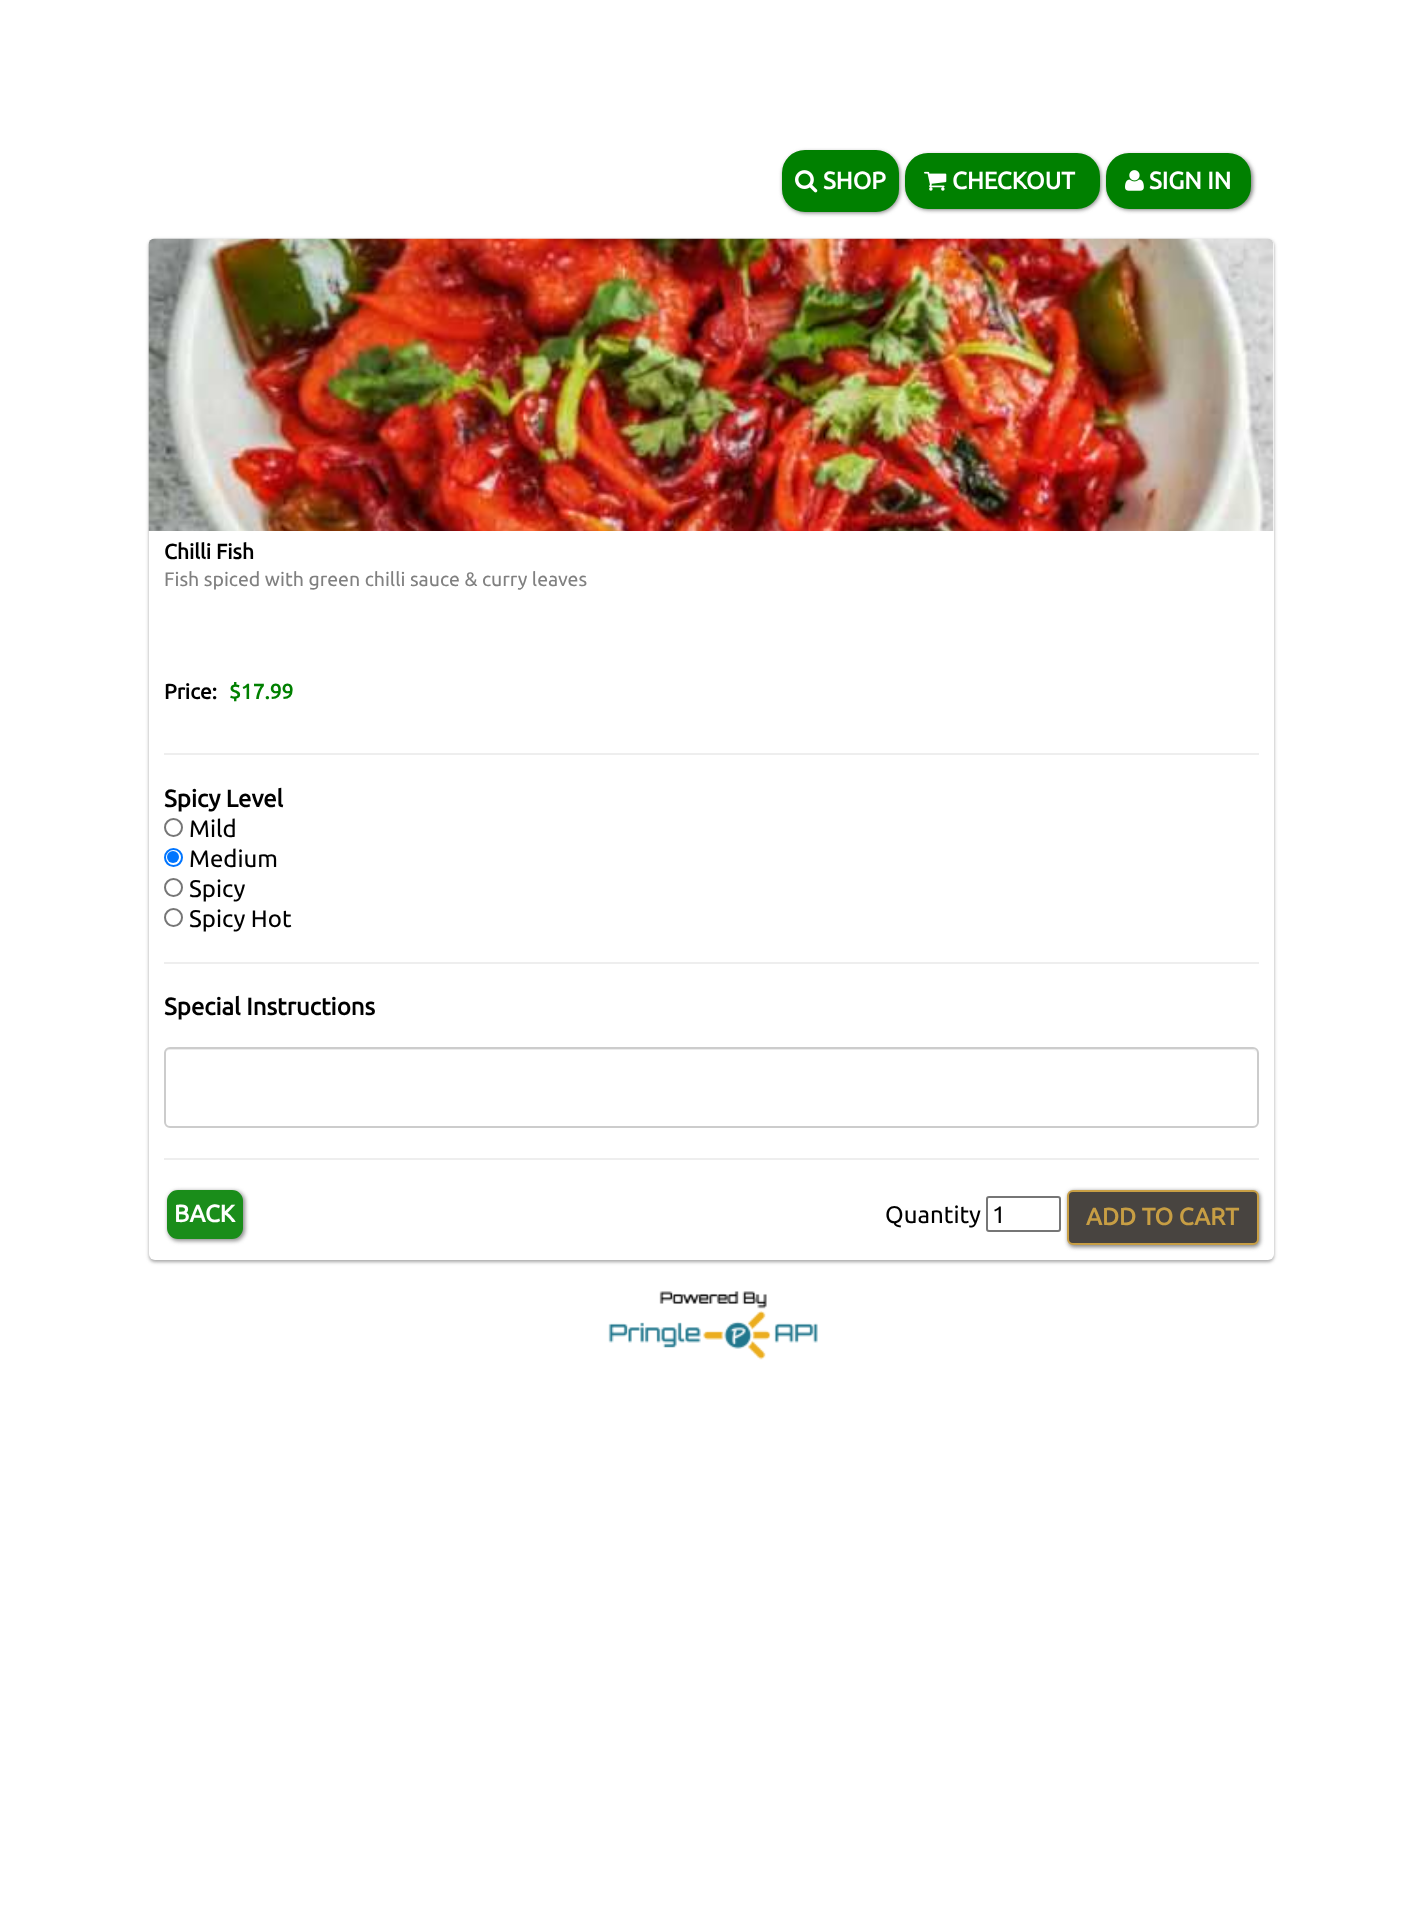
(async () => {
    const canvas = document.querySelector("canvas");
    canvas.width = 1421;
    canvas.height = 1916;
    const context = canvas.getContext("2d");
    context.miterLimit = 4;
    context.fontKerning = "normal";
    function write(s, x, y, font, color) {
        context.font = font;
        context.fillStyle = color;
        context.fillText(s, x, y);
    }
    function block(x, y, w, h, color) {
        context.fillStyle = color;
        context.fillRect(x, y, w, h);
    }
    function card(x, y, w, h, r, color) {
        context.fillStyle = color;
        context.beginPath();
        context.roundRect(x, y, w, h, r);
        context.fill();
    }
    async function photo(src, x, y, w, h) {
        const img = new Image();
        img.src = src;
        await img.decode();
        context.drawImage(img, x, y, w, h);
    }

    block(0, 0, 1421, 1916, "rgb(255, 255, 255)");
    context.fillStyle = "rgb(128, 128, 128)";
    context.filter = "blur(2px)";
    context.beginPath();
    context.roundRect(783, 152, 117, 61, 23);
    context.fill();
    context.filter = "none";
    context.fillStyle = "rgb(0, 128, 0)";
    context.beginPath();
    context.roundRect(783, 151, 115, 60, 22);
    context.fill();
    context.strokeStyle = "rgb(0, 128, 0)";
    context.lineWidth = 2;
    context.stroke();
    await photo("media/1.png", 795, 170, 23, 23);
    write("SHOP", 823, 189, "bold 24px Ubuntu", "rgb(255, 255, 255)");
    context.fillStyle = "rgb(128, 128, 128)";
    context.filter = "blur(2px)";
    context.beginPath();
    context.roundRect(906, 155, 195, 55, 23);
    context.fill();
    context.filter = "none";
    context.fillStyle = "rgb(0, 128, 0)";
    context.beginPath();
    context.roundRect(906, 154, 193, 54, 22);
    context.fill();
    context.stroke();
    await photo("media/2.png", 924, 171, 23, 20);
    write("CHECKOUT", 952, 189, "bold 24px Ubuntu", "rgb(255, 255, 255)");
    context.fillStyle = "rgb(128, 128, 128)";
    context.filter = "blur(2px)";
    context.beginPath();
    context.roundRect(1107, 155, 146, 55, 23);
    context.fill();
    context.filter = "none";
    context.fillStyle = "rgb(0, 128, 0)";
    context.beginPath();
    context.roundRect(1107, 154, 143, 54, 22);
    context.fill();
    context.stroke();
    await photo("media/3.png", 1125, 170, 19, 21);
    write("SIGN IN", 1149, 189, "bold 24px Ubuntu", "rgb(255, 255, 255)");
    context.fillStyle = "rgba(0, 0, 0, 0.24)";
    context.filter = "blur(1.5px)";
    context.beginPath();
    context.roundRect(149, 240, 1125, 1022, 6);
    context.fill();
    context.filter = "none";
    context.fillStyle = "rgba(0, 0, 0, 0.12)";
    context.filter = "blur(2px)";
    context.beginPath();
    context.roundRect(149, 240, 1125, 1022, 6);
    context.fill();
    context.filter = "none";
    card(149, 239, 1125, 1021, 6, "rgb(255, 255, 255)");
    await photo("media/4.png", 148, 238, 1126, 293);
    write("Chilli Fish", 164, 559, "bold 21px Ubuntu", "rgb(0, 0, 0)");
    write("Fish spiced with green chilli sauce & curry leaves", 164, 586, "19.5px Ubuntu", "rgb(128, 128, 128)");
    write("Price:", 164, 699, "bold 21px Ubuntu", "rgb(0, 0, 0)");
    write("$17.99", 229, 699, "bold 21px Ubuntu", "rgb(0, 128, 0)");
    block(164, 753, 1095, 2, "rgb(238, 238, 238)");
    write("Spicy Level", 164, 807, "bold 24px Ubuntu", "rgb(0, 0, 0)");
    context.beginPath();
    context.arc(173.5, 827.5, 8.5, 0, Math.PI * 2);
    context.strokeStyle = "rgb(118, 118, 118)";
    context.stroke();
    write("Mild", 189, 837, "24px Ubuntu", "rgb(0, 0, 0)");
    context.beginPath();
    context.arc(173.5, 857.5, 8.5, 0, Math.PI * 2);
    context.strokeStyle = "rgb(0, 117, 255)";
    context.stroke();
    context.fillStyle = "rgb(0, 117, 255)";
    context.beginPath();
    context.arc(173, 857, 6, 0, Math.PI * 2);
    context.fill();
    write("Medium", 189, 867, "24px Ubuntu", "rgb(0, 0, 0)");
    context.beginPath();
    context.arc(173.5, 887.5, 8.5, 0, Math.PI * 2);
    context.strokeStyle = "rgb(118, 118, 118)";
    context.stroke();
    write("Spicy", 189, 897, "24px Ubuntu", "rgb(0, 0, 0)");
    context.beginPath();
    context.arc(173.5, 917.5, 8.5, 0, Math.PI * 2);
    context.stroke();
    write("Spicy Hot", 189, 927, "24px Ubuntu", "rgb(0, 0, 0)");
    block(164, 962, 1095, 2, "rgb(238, 238, 238)");
    write("Special Instructions", 164, 1015, "bold 24px Ubuntu", "rgb(0, 0, 0)");
    context.fillStyle = "rgb(236, 236, 236)";
    context.beginPath();
    context.moveTo(170, 1050);
    context.lineTo(1252, 1050);
    context.bezierCurveTo(1255, 1050, 1257, 1052, 1257, 1054);
    context.bezierCurveTo(1257, 1051, 1255, 1049, 1252, 1049);
    context.lineTo(170, 1049);
    context.bezierCurveTo(167, 1049, 165, 1051, 165, 1054);
    context.bezierCurveTo(165, 1052, 167, 1050, 170, 1050);
    context.closePath();
    context.fill();
    context.beginPath();
    context.roundRect(165, 1048, 1093, 79, 5);
    context.strokeStyle = "rgb(204, 204, 204)";
    context.stroke();
    block(164, 1158, 1095, 2, "rgb(238, 238, 238)");
    context.fillStyle = "rgb(141, 141, 141)";
    context.filter = "blur(2px)";
    context.beginPath();
    context.roundRect(168, 1191, 77, 50, 11);
    context.fill();
    context.filter = "none";
    context.fillStyle = "rgb(26, 141, 26)";
    context.beginPath();
    context.roundRect(168, 1191, 74, 47, 10);
    context.fill();
    context.strokeStyle = "rgb(26, 141, 26)";
    context.stroke();
    write("BACK", 174, 1222, "bold 24px Ubuntu", "rgb(255, 255, 255)");
    write("Quantity", 885, 1223, "24px Ubuntu", "rgb(0, 0, 0)");
    context.beginPath();
    context.roundRect(987, 1197, 73, 34, 2);
    context.strokeStyle = "rgb(118, 118, 118)";
    context.stroke();
    write("1", 992, 1223, "24px Ubuntu", "rgb(0, 0, 0)");
    context.fillStyle = "rgb(128, 128, 128)";
    context.filter = "blur(2px)";
    context.beginPath();
    context.roundRect(1068, 1191, 192, 56, 6);
    context.fill();
    context.filter = "none";
    context.fillStyle = "rgb(72, 68, 64)";
    context.beginPath();
    context.roundRect(1068, 1191, 190, 53, 5);
    context.fill();
    context.strokeStyle = "rgb(199, 158, 68)";
    context.stroke();
    write("ADD TO CART", 1086, 1225, "bold 24px Ubuntu", "rgb(199, 158, 68)");
    await photo("media/5.png", 608, 1291, 210, 69);
})();
